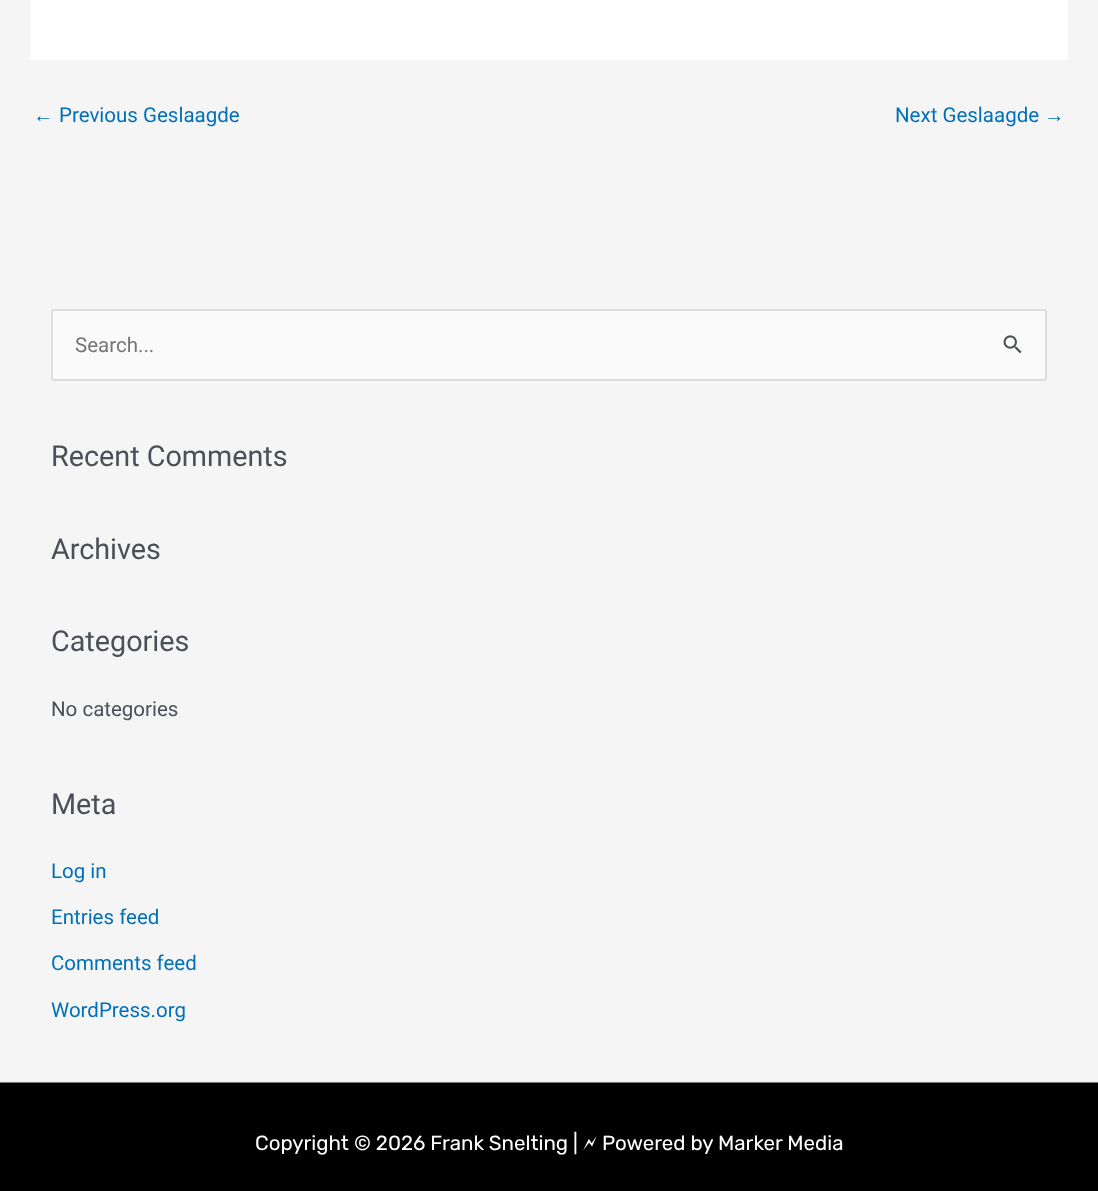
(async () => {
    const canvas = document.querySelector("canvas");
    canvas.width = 1098;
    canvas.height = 1191;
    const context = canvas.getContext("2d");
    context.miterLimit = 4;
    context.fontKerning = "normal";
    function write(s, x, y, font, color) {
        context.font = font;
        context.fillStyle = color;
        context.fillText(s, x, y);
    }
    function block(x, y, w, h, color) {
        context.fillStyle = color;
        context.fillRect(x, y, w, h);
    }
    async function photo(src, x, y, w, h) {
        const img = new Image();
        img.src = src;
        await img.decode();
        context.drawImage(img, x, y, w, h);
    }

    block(0, 0, 1098, 1191, "rgb(245, 245, 245)");
    block(30, 0, 1038, 60, "rgb(255, 255, 255)");
    write("←", 33, 122, "20.5px Liberation Sans", "rgb(1, 112, 185)");
    write("Previous Geslaagde", 59, 122, "20.5px Roboto", "rgb(1, 112, 185)");
    write("Next Geslaagde", 895, 122, "20.5px Roboto", "rgb(1, 112, 185)");
    write("→", 1044, 122, "20.5px Liberation Sans", "rgb(1, 112, 185)");
    context.fillStyle = "rgb(250, 250, 250)";
    context.beginPath();
    context.roundRect(52, 310, 994, 70, 2);
    context.fill();
    context.strokeStyle = "rgb(221, 221, 221)";
    context.lineWidth = 2;
    context.stroke();
    write("Search...", 75, 352, "20.5px Roboto", "rgb(117, 117, 117)");
    await photo("media/1.png", 1003, 335, 19, 19);
    write("Recent Comments", 51, 466, "28.75px Roboto", "rgb(75, 79, 88)");
    write("Archives", 51, 559, "28.75px Roboto", "rgb(75, 79, 88)");
    write("Categories", 51, 651, "28.75px Roboto", "rgb(75, 79, 88)");
    write("No categories", 51, 716, "20.5px Roboto", "rgb(75, 79, 88)");
    write("Meta", 51, 814, "28.75px Roboto", "rgb(75, 79, 88)");
    write("Log in", 51, 878, "20.5px Roboto", "rgb(1, 112, 185)");
    write("Entries feed", 51, 924, "20.5px Roboto", "rgb(1, 112, 185)");
    write("Comments feed", 51, 970, "20.5px Roboto", "rgb(1, 112, 185)");
    write("WordPress.org", 51, 1017, "20.5px Roboto", "rgb(1, 112, 185)");
    block(0, 1082, 1098, 1, "rgb(122, 122, 122)");
    block(0, 1083, 1098, 108, "rgb(0, 0, 0)");
    write("Copyright © 2026 Frank Snelting |", 255, 1150, "20.5px Rubik", "rgb(255, 255, 255)");
    write("🗲", 583, 1150, "20.5px FreeSerif", "rgb(255, 255, 255)");
    write("Powered by Marker Media", 602, 1150, "20.5px Rubik", "rgb(255, 255, 255)");
})();
